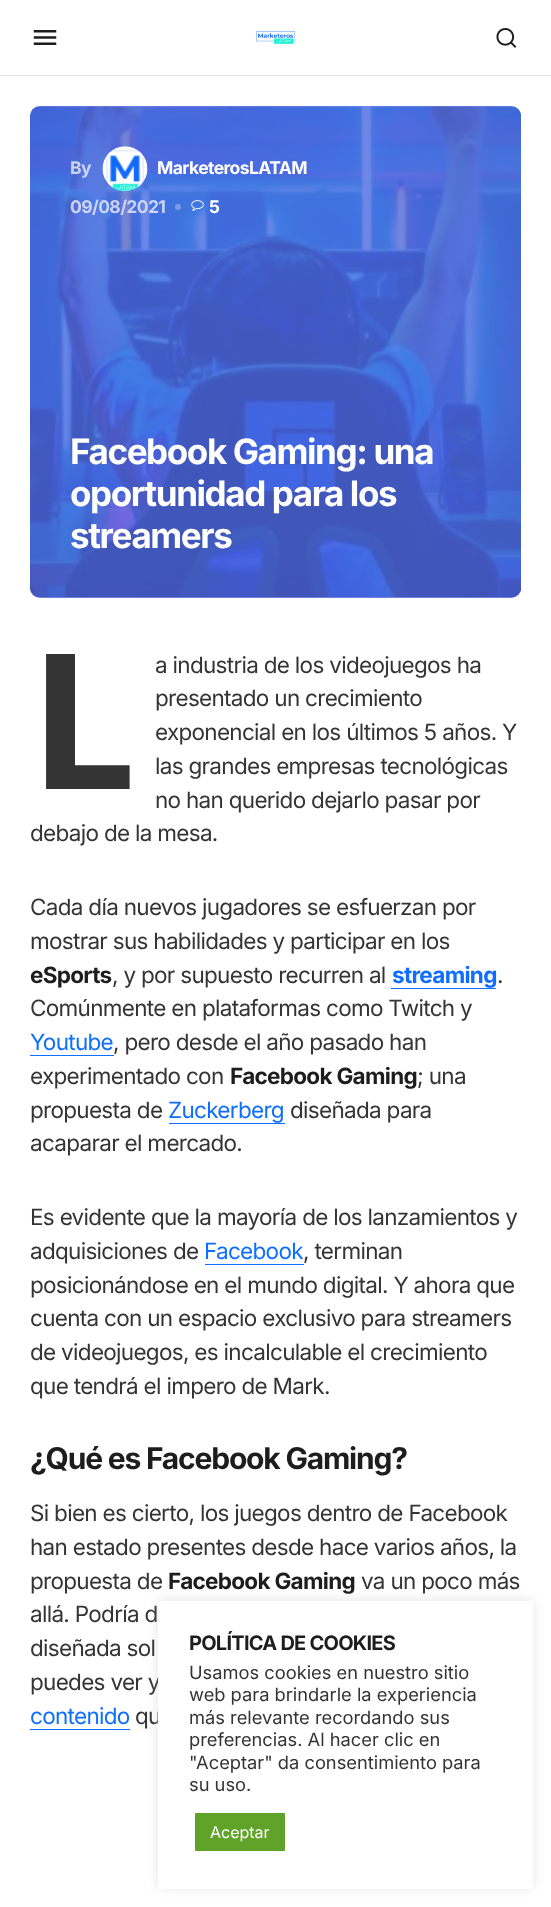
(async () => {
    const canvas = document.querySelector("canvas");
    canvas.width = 551;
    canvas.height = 1907;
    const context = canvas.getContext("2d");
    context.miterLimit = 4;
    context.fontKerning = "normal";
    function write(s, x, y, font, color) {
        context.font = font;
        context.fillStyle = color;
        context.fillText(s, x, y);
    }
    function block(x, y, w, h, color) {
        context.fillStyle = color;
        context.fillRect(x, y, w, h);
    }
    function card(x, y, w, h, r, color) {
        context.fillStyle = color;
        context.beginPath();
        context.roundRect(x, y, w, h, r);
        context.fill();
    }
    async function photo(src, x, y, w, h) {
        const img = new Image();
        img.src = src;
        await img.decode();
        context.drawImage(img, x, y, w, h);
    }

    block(0, 0, 551, 1907, "rgb(255, 255, 255)");
    await photo("media/1.png", 33, 30, 24, 15);
    await photo("media/2.png", 256, 31, 39, 13);
    await photo("media/3.png", 496, 28, 21, 20);
    block(0, 75, 551, 1, "rgb(228, 228, 228)");
    await photo("media/4.png", 30, 106, 491, 492);
    card(30, 106, 491, 492, 10, "rgba(80, 104, 224, 0.8)");
    context.letterSpacing = "-0.6px";
    write("By", 70, 174, "bold 17.5px Inter", "rgb(203, 212, 244)");
    await photo("media/5.png", 102, 146, 46, 46);
    write("MarketerosLATAM", 157, 174, "bold 17.5px Inter", "rgb(255, 255, 255)");
    write("09/08/2021", 70, 213, "bold 17.5px Inter", "rgb(203, 212, 244)");
    context.fillStyle = "rgb(122, 156, 232)";
    context.beginPath();
    context.arc(178, 207, 3, 0, Math.PI * 2);
    context.fill();
    await photo("media/6.png", 191, 200, 13, 11);
    write("5", 209, 213, "bold 17.5px Inter", "rgb(255, 255, 255)");
    context.letterSpacing = "-1.4px";
    write("Facebook Gaming: una", 70, 464, "bold 35px Inter", "rgb(255, 255, 255)");
    write("oportunidad para los", 70, 506, "bold 35px Inter", "rgb(255, 255, 255)");
    write("streamers", 70, 548, "bold 35px Inter", "rgb(255, 255, 255)");
    context.letterSpacing = "-0.7px";
    write("L", 30, 789, "bold 189px Noto Sans", "rgb(52, 52, 52)");
    write("a industria de los videojuegos ha", 155, 673, "22.5px Inter", "rgb(52, 52, 52)");
    write("presentado un crecimiento", 155, 706, "22.5px Inter", "rgb(52, 52, 52)");
    write("exponencial en los últimos 5 años. Y", 155, 740, "22.5px Inter", "rgb(52, 52, 52)");
    write("las grandes empresas tecnológicas", 155, 774, "22.5px Inter", "rgb(52, 52, 52)");
    write("no han querido dejarlo pasar por", 155, 808, "22.5px Inter", "rgb(52, 52, 52)");
    write("debajo de la mesa.", 30, 841, "22.5px Inter", "rgb(52, 52, 52)");
    write("Cada día nuevos jugadores se esfuerzan por", 30, 915, "22.5px Inter", "rgb(52, 52, 52)");
    write("mostrar sus habilidades y participar en los", 30, 949, "22.5px Inter", "rgb(52, 52, 52)");
    write("eSports", 30, 983, "bold 22.5px Inter", "rgb(29, 29, 29)");
    write(", y por supuesto recurren al", 112, 983, "22.5px Inter", "rgb(52, 52, 52)");
    write("streaming", 392, 983, "bold 22.5px Inter", "rgb(13, 110, 255)");
    block(391, 988, 105, 1, "rgb(13, 110, 255)");
    write(".", 497, 983, "22.5px Inter", "rgb(52, 52, 52)");
    write("Comúnmente en plataformas como Twitch y", 30, 1016, "22.5px Inter", "rgb(52, 52, 52)");
    write("Youtube", 30, 1050, "22.5px Inter", "rgb(13, 110, 255)");
    block(30, 1055, 84, 1, "rgb(13, 110, 255)");
    write(", pero desde el año pasado han", 113, 1050, "22.5px Inter", "rgb(52, 52, 52)");
    write("experimentado con", 30, 1084, "22.5px Inter", "rgb(52, 52, 52)");
    write("Facebook Gaming", 230, 1084, "bold 22.5px Inter", "rgb(29, 29, 29)");
    write("; una", 417, 1084, "22.5px Inter", "rgb(52, 52, 52)");
    write("propuesta de", 30, 1118, "22.5px Inter", "rgb(52, 52, 52)");
    write("Zuckerberg", 168, 1118, "22.5px Inter", "rgb(13, 110, 255)");
    block(169, 1123, 116, 1, "rgb(13, 110, 255)");
    write("diseñada para", 290, 1118, "22.5px Inter", "rgb(52, 52, 52)");
    write("acaparar el mercado.", 30, 1151, "22.5px Inter", "rgb(52, 52, 52)");
    write("Es evidente que la mayoría de los lanzamientos y", 30, 1225, "22.5px Inter", "rgb(52, 52, 52)");
    write("adquisiciones de", 30, 1259, "22.5px Inter", "rgb(52, 52, 52)");
    write("Facebook", 204, 1259, "22.5px Inter", "rgb(13, 110, 255)");
    block(205, 1264, 99, 1, "rgb(13, 110, 255)");
    write(", terminan", 303, 1259, "22.5px Inter", "rgb(52, 52, 52)");
    write("posicionándose en el mundo digital. Y ahora que", 30, 1293, "22.5px Inter", "rgb(52, 52, 52)");
    write("cuenta con un espacio exclusivo para streamers", 30, 1326, "22.5px Inter", "rgb(52, 52, 52)");
    write("de videojuegos, es incalculable el crecimiento", 30, 1360, "22.5px Inter", "rgb(52, 52, 52)");
    write("que tendrá el impero de Mark.", 30, 1394, "22.5px Inter", "rgb(52, 52, 52)");
    context.letterSpacing = "-1.2px";
    write("¿Qué es Facebook Gaming?", 30, 1469, "bold 30px Inter", "rgb(29, 29, 29)");
    context.letterSpacing = "-0.7px";
    write("Si bien es cierto, los juegos dentro de Facebook", 30, 1521, "22.5px Inter", "rgb(52, 52, 52)");
    write("han estado presentes desde hace varios años, la", 30, 1555, "22.5px Inter", "rgb(52, 52, 52)");
    write("propuesta de", 30, 1589, "22.5px Inter", "rgb(52, 52, 52)");
    write("Facebook Gaming", 168, 1589, "bold 22.5px Inter", "rgb(29, 29, 29)");
    write("va un poco más", 361, 1589, "22.5px Inter", "rgb(52, 52, 52)");
    write("allá. Podría d", 30, 1622, "22.5px Inter", "rgb(52, 52, 52)");
    write("diseñada sol", 30, 1656, "22.5px Inter", "rgb(52, 52, 52)");
    write("puedes ver y", 30, 1690, "22.5px Inter", "rgb(52, 52, 52)");
    write("contenido", 30, 1724, "22.5px Inter", "rgb(13, 110, 255)");
    block(30, 1729, 100, 1, "rgb(13, 110, 255)");
    write("qu", 135, 1724, "22.5px Inter", "rgb(52, 52, 52)");
    context.fillStyle = "rgba(172, 171, 171, 0.3)";
    context.filter = "blur(6px)";
    context.beginPath();
    context.rect(158, 1600, 375, 288);
    context.fill();
    context.filter = "none";
    block(158, 1601, 375, 288, "rgb(255, 255, 255)");
    context.letterSpacing = "-0.75px";
    write("POLÍTICA DE COOKIES", 189, 1650, "bold 20px Inter", "rgb(29, 29, 29)");
    context.letterSpacing = "0px";
    write("Usamos cookies en nuestro sitio", 189, 1679, "18.3px Inter", "rgb(52, 52, 52)");
    write("web para brindarle la experiencia", 189, 1701, "18.3px Inter", "rgb(52, 52, 52)");
    write("más relevante recordando sus", 189, 1724, "18.3px Inter", "rgb(52, 52, 52)");
    write("preferencias. Al hacer clic en", 189, 1746, "18.3px Inter", "rgb(52, 52, 52)");
    write("\"Aceptar\" da consentimiento para", 189, 1769, "18.3px Inter", "rgb(52, 52, 52)");
    write("su uso.", 189, 1791, "18.3px Inter", "rgb(52, 52, 52)");
    block(195, 1813, 90, 38, "rgb(97, 162, 41)");
    write("Aceptar", 210, 1838, "16px Inter", "rgb(255, 255, 255)");
})();
